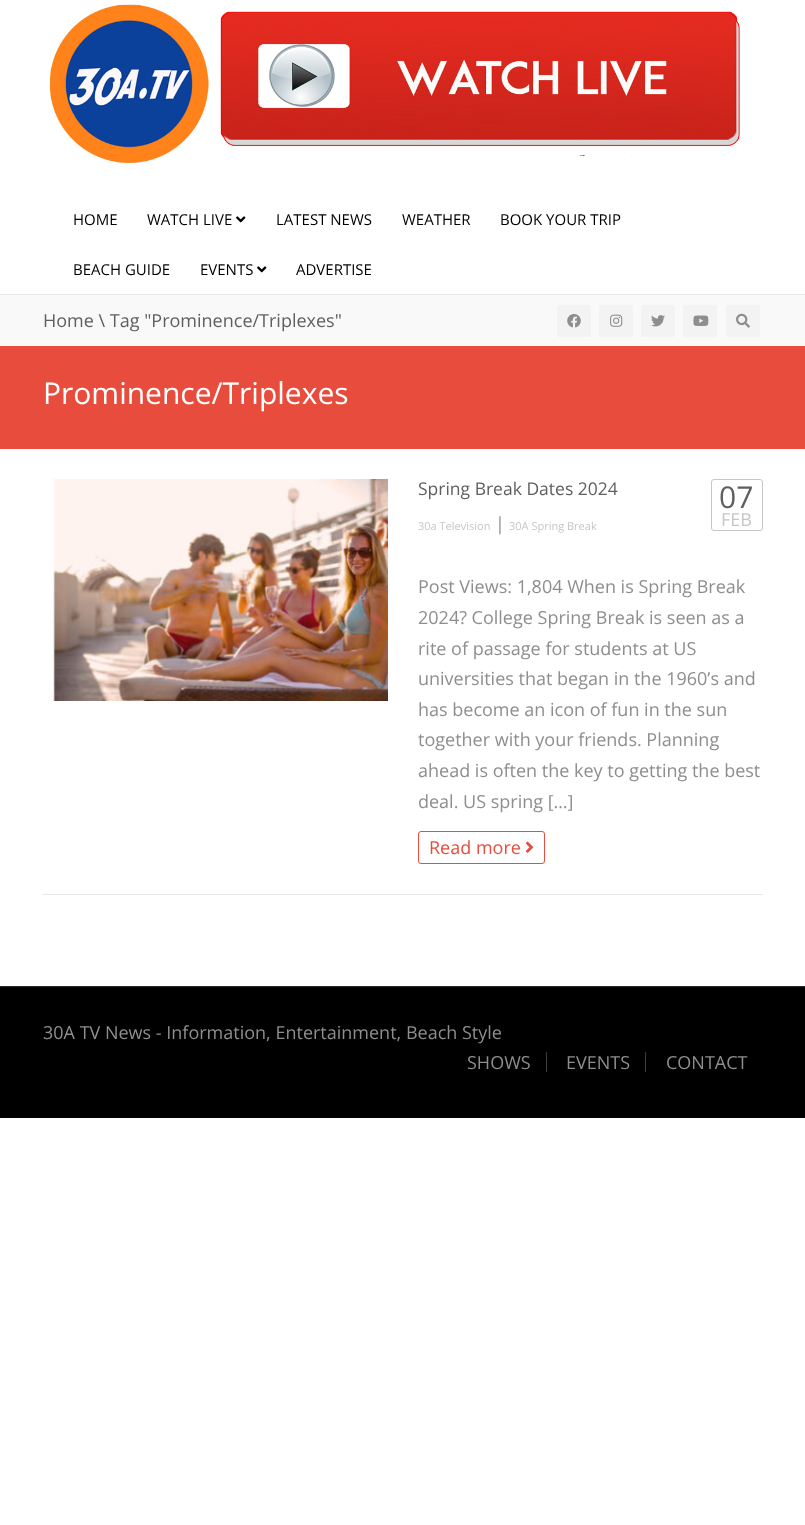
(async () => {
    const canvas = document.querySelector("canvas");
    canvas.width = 805;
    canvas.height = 1525;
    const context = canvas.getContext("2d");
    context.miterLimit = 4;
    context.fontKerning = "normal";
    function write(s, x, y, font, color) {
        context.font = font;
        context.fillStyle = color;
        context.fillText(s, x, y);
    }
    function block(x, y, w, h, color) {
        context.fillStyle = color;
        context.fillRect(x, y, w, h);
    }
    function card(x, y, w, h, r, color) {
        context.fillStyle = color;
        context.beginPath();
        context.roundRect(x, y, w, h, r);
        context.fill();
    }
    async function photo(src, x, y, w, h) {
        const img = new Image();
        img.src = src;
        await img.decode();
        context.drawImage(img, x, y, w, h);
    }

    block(0, 0, 805, 1525, "rgb(255, 255, 255)");
    block(0, 294, 805, 1, "rgb(231, 231, 231)");
    await photo("media/1.png", 50, 4, 690, 159);
    write("HOME", 73, 225, "15px Open Sans", "rgb(0, 0, 0)");
    write("WATCH LIVE", 147, 225, "15px Open Sans", "rgb(0, 0, 0)");
    await photo("media/2.png", 236, 216, 10, 7);
    write("LATEST NEWS", 276, 225, "15px Open Sans", "rgb(0, 0, 0)");
    write("WEATHER", 402, 225, "15px Open Sans", "rgb(0, 0, 0)");
    write("BOOK YOUR TRIP", 500, 225, "15px Open Sans", "rgb(0, 0, 0)");
    write("BEACH GUIDE", 73, 275, "15px Open Sans", "rgb(0, 0, 0)");
    write("EVENTS", 200, 275, "15px Open Sans", "rgb(0, 0, 0)");
    await photo("media/2.png", 257, 266, 10, 7);
    write("ADVERTISE", 296, 275, "15px Open Sans", "rgb(0, 0, 0)");
    block(0, 295, 805, 51, "rgb(249, 249, 249)");
    write("Home \\ Tag \"Prominence/Triplexes\"", 43, 327, "18px Open Sans", "rgb(95, 95, 95)");
    card(557, 305, 34, 32, 2, "rgb(243, 243, 243)");
    await photo("media/3.png", 567, 314, 14, 14);
    card(599, 305, 34, 32, 2, "rgb(243, 243, 243)");
    await photo("media/4.png", 610, 314, 13, 13);
    card(641, 305, 34, 32, 2, "rgb(243, 243, 243)");
    await photo("media/5.png", 651, 315, 14, 12);
    card(683, 305, 34, 32, 2, "rgb(243, 243, 243)");
    await photo("media/6.png", 693, 315, 16, 11);
    card(726, 305, 34, 32, 2, "rgb(243, 243, 243)");
    await photo("media/7.png", 736, 313, 14, 15);
    block(0, 346, 805, 103, "rgb(231, 76, 60)");
    write("Prominence/Triplexes", 43, 404, "30px Open Sans", "rgb(255, 255, 255)");
    block(43, 894, 720, 1, "rgb(231, 231, 231)");
    await photo("media/8.png", 51, 479, 337, 222);
    write("Spring Break Dates 2024", 418, 495, "17.5px Open Sans", "rgb(95, 95, 95)");
    write("30a Television", 418, 530, "11px Open Sans", "rgb(198, 198, 198)");
    write("|", 495, 530, "18px Open Sans", "rgb(142, 142, 142)");
    write("30A Spring Break", 509, 530, "11px Open Sans", "rgb(198, 198, 198)");
    context.beginPath();
    context.roundRect(711.5, 479.5, 51, 51, 2.5);
    context.strokeStyle = "rgb(198, 198, 198)";
    context.stroke();
    write("07", 719, 508, "30px Open Sans", "rgb(95, 95, 95)");
    write("FEB", 721, 526, "18px Open Sans", "rgb(198, 198, 198)");
    write("Post Views: 1,804 When is Spring Break", 418, 593, "18px Open Sans", "rgb(142, 142, 142)");
    write("2024? College Spring Break is seen as a", 418, 624, "18px Open Sans", "rgb(142, 142, 142)");
    write("rite of passage for students at US", 418, 655, "18px Open Sans", "rgb(142, 142, 142)");
    write("universities that began in the 1960’s and", 418, 685, "18px Open Sans", "rgb(142, 142, 142)");
    write("has become an icon of fun in the sun", 418, 716, "18px Open Sans", "rgb(142, 142, 142)");
    write("together with your friends. Planning", 418, 746, "18px Open Sans", "rgb(142, 142, 142)");
    write("ahead is often the key to getting the best", 418, 777, "18px Open Sans", "rgb(142, 142, 142)");
    write("deal. US spring […]", 418, 808, "18px Open Sans", "rgb(142, 142, 142)");
    context.beginPath();
    context.roundRect(418.5, 831.5, 126, 32, 2.5);
    context.strokeStyle = "rgb(231, 76, 60)";
    context.stroke();
    write("Read more", 429, 854, "18px Open Sans", "rgb(231, 76, 60)");
    await photo("media/9.png", 525, 841, 9, 12);
    block(0, 987, 805, 131, "rgb(0, 0, 0)");
    block(0, 986, 805, 1, "rgb(43, 43, 43)");
    write("30A TV News - Information, Entertainment, Beach Style", 43, 1039, "18px Open Sans", "rgb(142, 142, 142)");
    block(546, 1052, 1, 20, "rgb(60, 60, 60)");
    write("SHOWS", 467, 1069, "18px Open Sans", "rgb(142, 142, 142)");
    block(645, 1052, 1, 20, "rgb(60, 60, 60)");
    write("EVENTS", 566, 1069, "18px Open Sans", "rgb(142, 142, 142)");
    write("CONTACT", 666, 1069, "18px Open Sans", "rgb(142, 142, 142)");
})();
